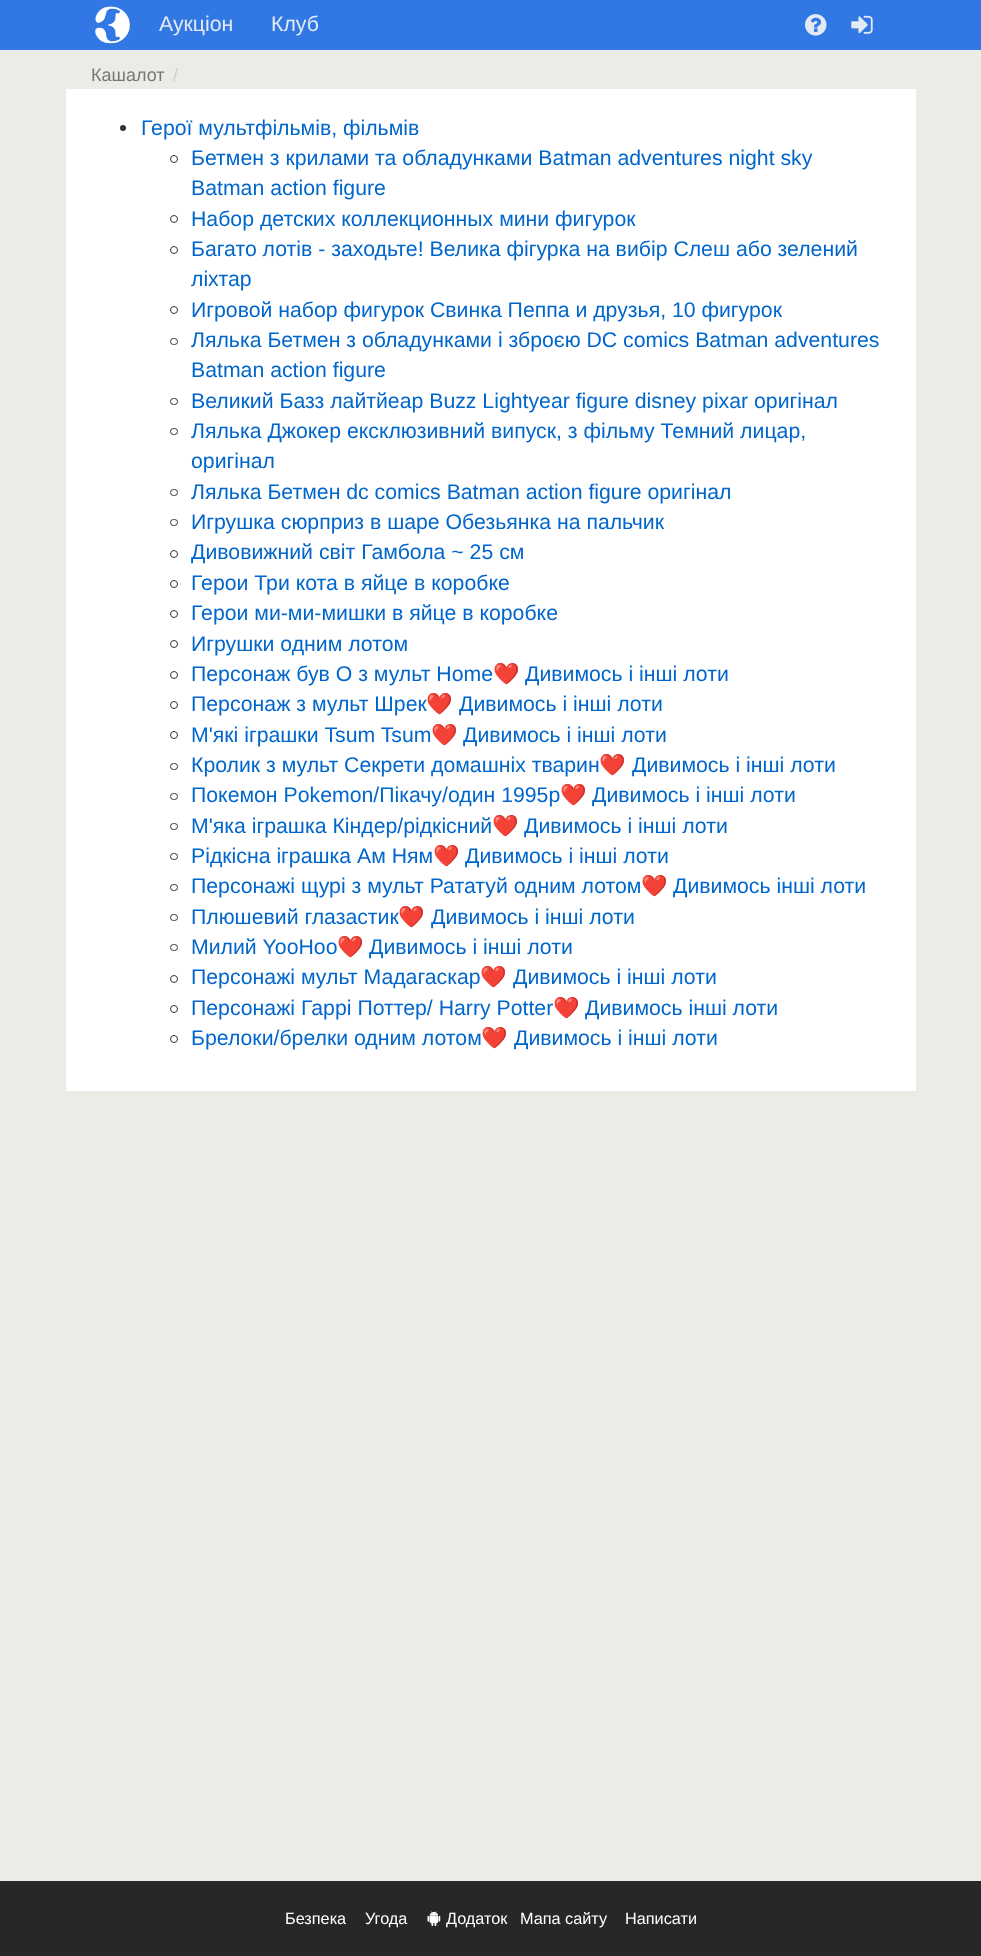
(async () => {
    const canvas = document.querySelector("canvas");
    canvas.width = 981;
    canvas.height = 1956;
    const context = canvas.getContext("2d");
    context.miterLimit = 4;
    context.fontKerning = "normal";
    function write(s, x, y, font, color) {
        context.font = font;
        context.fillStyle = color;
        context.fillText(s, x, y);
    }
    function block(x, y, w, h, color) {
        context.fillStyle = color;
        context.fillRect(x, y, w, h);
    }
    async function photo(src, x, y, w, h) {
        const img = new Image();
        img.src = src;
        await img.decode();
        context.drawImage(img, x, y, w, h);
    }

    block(0, 0, 981, 1956, "rgb(236, 236, 230)");
    block(0, 0, 981, 50, "rgb(49, 120, 229)");
    await photo("media/1.png", 95, 6, 35, 38);
    write("Аукціон", 159, 31, "21.25px Liberation Sans", "rgb(227, 234, 244)");
    write("Клуб", 271, 31, "21.25px Liberation Sans", "rgb(227, 234, 244)");
    await photo("media/2.png", 805, 14, 22, 22);
    await photo("media/3.png", 851, 15, 22, 19);
    write("Кашалот", 91, 81, "18px Liberation Sans", "rgb(119, 119, 119)");
    write("/", 173, 81, "18px Liberation Sans", "rgb(204, 204, 204)");
    block(66, 89, 850, 1002, "rgb(255, 255, 255)");
    context.fillStyle = "rgb(51, 51, 51)";
    context.beginPath();
    context.arc(123, 128, 3, 0, Math.PI * 2);
    context.fill();
    write("Герої мультфільмів, фільмів", 141, 135, "21.25px Liberation Sans", "rgb(0, 102, 204)");
    context.beginPath();
    context.arc(174, 159, 3.5, 0, Math.PI * 2);
    context.strokeStyle = "rgb(51, 51, 51)";
    context.stroke();
    write("Бетмен з крилами та обладунками Batman adventures night sky", 191, 165, "21.25px Liberation Sans", "rgb(0, 102, 204)");
    write("Batman action figure", 191, 195, "21.25px Liberation Sans", "rgb(0, 102, 204)");
    context.beginPath();
    context.arc(174, 219, 3.5, 0, Math.PI * 2);
    context.stroke();
    write("Набор детских коллекционных мини фигурок", 191, 226, "21.25px Liberation Sans", "rgb(0, 102, 204)");
    context.beginPath();
    context.arc(174, 250, 3.5, 0, Math.PI * 2);
    context.stroke();
    write("Багато лотів - заходьте! Велика фігурка на вибір Слеш або зелений", 191, 256, "21.25px Liberation Sans", "rgb(0, 102, 204)");
    write("ліхтар", 191, 286, "21.25px Liberation Sans", "rgb(0, 102, 204)");
    context.beginPath();
    context.arc(174, 310, 3.5, 0, Math.PI * 2);
    context.stroke();
    write("Игровой набор фигурок Свинка Пеппа и друзья, 10 фигурок", 191, 317, "21.25px Liberation Sans", "rgb(0, 102, 204)");
    context.beginPath();
    context.roundRect(170.5, 338.5, 7, 6, 3);
    context.stroke();
    write("Лялька Бетмен з обладунками і зброєю DC comics Batman adventures", 191, 347, "21.25px Liberation Sans", "rgb(0, 102, 204)");
    write("Batman action figure", 191, 377, "21.25px Liberation Sans", "rgb(0, 102, 204)");
    context.beginPath();
    context.roundRect(170.5, 398.5, 7, 6, 3);
    context.stroke();
    write("Великий Базз лайтйеар Buzz Lightyear figure disney pixar оригінал", 191, 408, "21.25px Liberation Sans", "rgb(0, 102, 204)");
    context.beginPath();
    context.roundRect(170.5, 428.5, 7, 6, 3);
    context.stroke();
    write("Лялька Джокер ексклюзивний випуск, з фільму Темний лицар,", 191, 438, "21.25px Liberation Sans", "rgb(0, 102, 204)");
    write("оригінал", 191, 468, "21.25px Liberation Sans", "rgb(0, 102, 204)");
    context.beginPath();
    context.roundRect(170.5, 489.5, 7, 6, 3);
    context.stroke();
    write("Лялька Бетмен dc comics Batman action figure оригінал", 191, 499, "21.25px Liberation Sans", "rgb(0, 102, 204)");
    context.beginPath();
    context.roundRect(170.5, 519.5, 7, 6, 3);
    context.stroke();
    write("Игрушка сюрприз в шаре Обезьянка на пальчик", 191, 529, "21.25px Liberation Sans", "rgb(0, 102, 204)");
    context.beginPath();
    context.arc(174, 554, 3.5, 0, Math.PI * 2);
    context.stroke();
    write("Дивовижний світ Гамбола ~ 25 см", 191, 559, "21.25px Liberation Sans", "rgb(0, 102, 204)");
    context.beginPath();
    context.arc(174, 584, 3.5, 0, Math.PI * 2);
    context.stroke();
    write("Герои Три кота в яйце в коробке", 191, 590, "21.25px Liberation Sans", "rgb(0, 102, 204)");
    context.beginPath();
    context.arc(174, 614, 3.5, 0, Math.PI * 2);
    context.stroke();
    write("Герои ми-ми-мишки в яйце в коробке", 191, 620, "21.25px Liberation Sans", "rgb(0, 102, 204)");
    context.beginPath();
    context.arc(174, 644, 3.5, 0, Math.PI * 2);
    context.stroke();
    write("Игрушки одним лотом", 191, 651, "21.25px Liberation Sans", "rgb(0, 102, 204)");
    context.beginPath();
    context.arc(174, 675, 3.5, 0, Math.PI * 2);
    context.stroke();
    write("Персонаж був О з мульт Home", 191, 681, "21.25px Liberation Sans", "rgb(0, 102, 204)");
    write("❤️", 493, 681, "21.25px Noto Color Emoji", "rgb(0, 102, 204)");
    write("Дивимось і інші лоти", 525, 681, "21.25px Liberation Sans", "rgb(0, 102, 204)");
    context.beginPath();
    context.arc(174, 705, 3.5, 0, Math.PI * 2);
    context.stroke();
    write("Персонаж з мульт Шрек", 191, 711, "21.25px Liberation Sans", "rgb(0, 102, 204)");
    write("❤️", 426, 711, "21.25px Noto Color Emoji", "rgb(0, 102, 204)");
    write("Дивимось і інші лоти", 459, 711, "21.25px Liberation Sans", "rgb(0, 102, 204)");
    context.beginPath();
    context.arc(174, 735, 3.5, 0, Math.PI * 2);
    context.stroke();
    write("М'які іграшки Tsum Tsum", 191, 742, "21.25px Liberation Sans", "rgb(0, 102, 204)");
    write("❤️", 431, 742, "21.25px Noto Color Emoji", "rgb(0, 102, 204)");
    write("Дивимось і інші лоти", 463, 742, "21.25px Liberation Sans", "rgb(0, 102, 204)");
    context.beginPath();
    context.roundRect(170.5, 763.5, 7, 6, 3);
    context.stroke();
    write("Кролик з мульт Секрети домашніх тварин", 191, 772, "21.25px Liberation Sans", "rgb(0, 102, 204)");
    write("❤️", 599, 772, "21.25px Noto Color Emoji", "rgb(0, 102, 204)");
    write("Дивимось і інші лоти", 632, 772, "21.25px Liberation Sans", "rgb(0, 102, 204)");
    context.beginPath();
    context.roundRect(170.5, 793.5, 7, 6, 3);
    context.stroke();
    write("Покемон Pokemon/Пікачу/один 1995р", 191, 802, "21.25px Liberation Sans", "rgb(0, 102, 204)");
    write("❤️", 560, 802, "21.25px Noto Color Emoji", "rgb(0, 102, 204)");
    write("Дивимось і інші лоти", 592, 802, "21.25px Liberation Sans", "rgb(0, 102, 204)");
    context.beginPath();
    context.roundRect(170.5, 823.5, 7, 6, 3);
    context.stroke();
    write("М'яка іграшка Кіндер/рідкісний", 191, 833, "21.25px Liberation Sans", "rgb(0, 102, 204)");
    write("❤️", 492, 833, "21.25px Noto Color Emoji", "rgb(0, 102, 204)");
    write("Дивимось і інші лоти", 524, 833, "21.25px Liberation Sans", "rgb(0, 102, 204)");
    context.beginPath();
    context.roundRect(170.5, 853.5, 7, 6, 3);
    context.stroke();
    write("Рідкісна іграшка Ам Ням", 191, 863, "21.25px Liberation Sans", "rgb(0, 102, 204)");
    write("❤️", 433, 863, "21.25px Noto Color Emoji", "rgb(0, 102, 204)");
    write("Дивимось і інші лоти", 465, 863, "21.25px Liberation Sans", "rgb(0, 102, 204)");
    context.beginPath();
    context.roundRect(170.5, 884.5, 7, 6, 3);
    context.stroke();
    write("Персонажі щурі з мульт Рататуй одним лотом", 191, 893, "21.25px Liberation Sans", "rgb(0, 102, 204)");
    write("❤️", 641, 893, "21.25px Noto Color Emoji", "rgb(0, 102, 204)");
    write("Дивимось інші лоти", 673, 893, "21.25px Liberation Sans", "rgb(0, 102, 204)");
    context.beginPath();
    context.roundRect(170.5, 914.5, 7, 6, 3);
    context.stroke();
    write("Плюшевий глазастик", 191, 924, "21.25px Liberation Sans", "rgb(0, 102, 204)");
    write("❤️", 398, 924, "21.25px Noto Color Emoji", "rgb(0, 102, 204)");
    write("Дивимось і інші лоти", 431, 924, "21.25px Liberation Sans", "rgb(0, 102, 204)");
    context.beginPath();
    context.roundRect(170.5, 944.5, 7, 6, 3);
    context.stroke();
    write("Милий YooHoo", 191, 954, "21.25px Liberation Sans", "rgb(0, 102, 204)");
    write("❤️", 337, 954, "21.25px Noto Color Emoji", "rgb(0, 102, 204)");
    write("Дивимось і інші лоти", 369, 954, "21.25px Liberation Sans", "rgb(0, 102, 204)");
    context.beginPath();
    context.arc(174, 979, 3.5, 0, Math.PI * 2);
    context.stroke();
    write("Персонажі мульт Мадагаскар", 191, 984, "21.25px Liberation Sans", "rgb(0, 102, 204)");
    write("❤️", 480, 984, "21.25px Noto Color Emoji", "rgb(0, 102, 204)");
    write("Дивимось і інші лоти", 513, 984, "21.25px Liberation Sans", "rgb(0, 102, 204)");
    context.beginPath();
    context.arc(174, 1009, 3.5, 0, Math.PI * 2);
    context.stroke();
    write("Персонажі Гаррі Поттер/ Harry Potter", 191, 1015, "21.25px Liberation Sans", "rgb(0, 102, 204)");
    write("❤️", 553, 1015, "21.25px Noto Color Emoji", "rgb(0, 102, 204)");
    write("Дивимось інші лоти", 585, 1015, "21.25px Liberation Sans", "rgb(0, 102, 204)");
    context.beginPath();
    context.arc(174, 1039, 3.5, 0, Math.PI * 2);
    context.stroke();
    write("Брелоки/брелки одним лотом", 191, 1045, "21.25px Liberation Sans", "rgb(0, 102, 204)");
    write("❤️", 481, 1045, "21.25px Noto Color Emoji", "rgb(0, 102, 204)");
    write("Дивимось і інші лоти", 514, 1045, "21.25px Liberation Sans", "rgb(0, 102, 204)");
    block(0, 1881, 981, 75, "rgb(38, 39, 41)");
    write("Безпека", 285, 1924, "16.25px Liberation Sans", "rgb(255, 255, 255)");
    write("Угода", 365, 1924, "16.25px Liberation Sans", "rgb(255, 255, 255)");
    await photo("media/4.png", 427, 1911, 14, 15);
    write("Додаток", 446, 1924, "16.25px Liberation Sans", "rgb(255, 255, 255)");
    write("Мапа сайту", 520, 1924, "16.25px Liberation Sans", "rgb(255, 255, 255)");
    write("Написати", 625, 1924, "16.25px Liberation Sans", "rgb(255, 255, 255)");
})();
